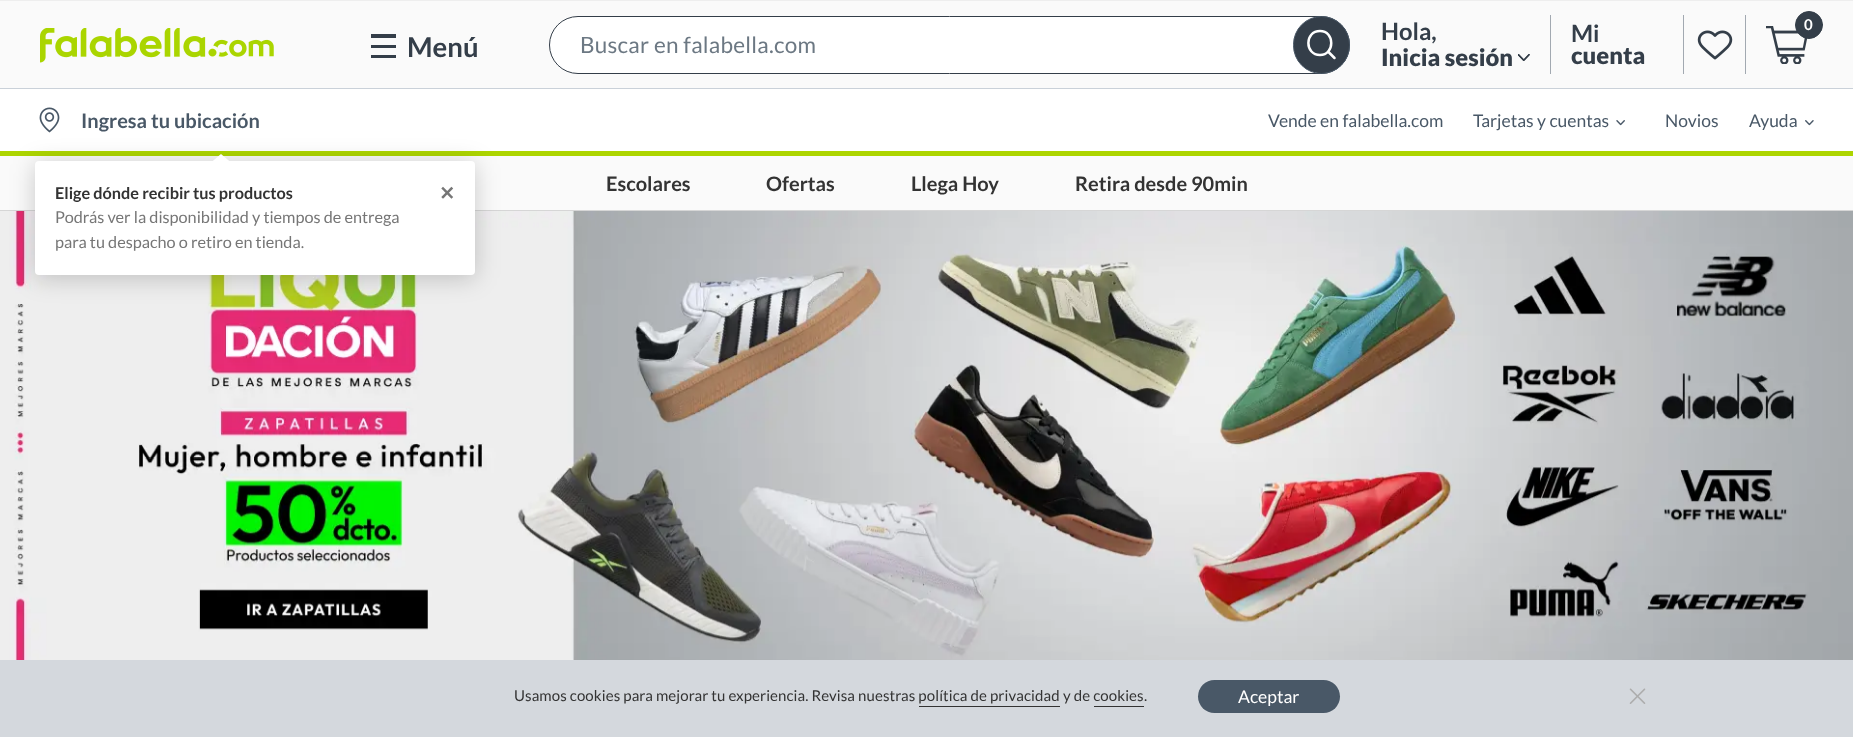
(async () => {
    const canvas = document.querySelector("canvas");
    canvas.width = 1853;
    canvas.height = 737;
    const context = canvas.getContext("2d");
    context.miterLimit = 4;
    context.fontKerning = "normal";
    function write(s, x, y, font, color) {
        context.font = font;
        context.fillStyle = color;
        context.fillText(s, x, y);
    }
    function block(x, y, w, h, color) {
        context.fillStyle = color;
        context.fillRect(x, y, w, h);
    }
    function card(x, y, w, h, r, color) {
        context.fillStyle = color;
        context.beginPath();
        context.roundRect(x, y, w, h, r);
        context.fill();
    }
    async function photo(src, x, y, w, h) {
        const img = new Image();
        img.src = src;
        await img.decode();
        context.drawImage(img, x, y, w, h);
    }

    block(0, 0, 1853, 737, "rgb(255, 255, 255)");
    block(0, 1, 1853, 87, "rgb(250, 250, 250)");
    block(0, 0, 1853, 1, "rgb(238, 238, 238)");
    await photo("media/1.png", 40, 28, 234, 35);
    block(371, 45, 25, 3, "rgb(52, 62, 73)");
    block(371, 34, 25, 4, "rgb(52, 62, 73)");
    block(371, 55, 25, 3, "rgb(52, 62, 73)");
    write("Menú", 407, 57, "bold 27.5px Lato", "rgb(52, 62, 73)");
    context.fillStyle = "rgb(255, 255, 255)";
    context.beginPath();
    context.roundRect(549.5, 16.5, 800, 57, 28.5);
    context.fill();
    context.strokeStyle = "rgb(52, 62, 73)";
    context.stroke();
    context.letterSpacing = "0.25px";
    write("Buscar en falabella.com", 580, 53, "22.5px Lato", "rgb(108, 120, 131)");
    context.fillStyle = "rgb(52, 62, 73)";
    context.beginPath();
    context.roundRect(1293.5, 16.5, 56, 57, 28);
    context.fill();
    context.strokeStyle = "rgb(73, 88, 103)";
    context.stroke();
    context.beginPath();
    context.moveTo(1320, 55);
    context.bezierCurveTo(1335, 55, 1335, 31, 1320, 31);
    context.bezierCurveTo(1304.5, 31, 1304.5, 55, 1320, 55);
    context.closePath();
    context.moveTo(1334.5, 58);
    context.lineTo(1328, 51.5);
    context.strokeStyle = "rgb(255, 255, 255)";
    context.lineWidth = 2.5;
    context.lineCap = "round";
    context.lineJoin = "round";
    context.stroke();
    block(1550, 15, 1, 59, "rgb(162, 169, 177)");
    context.letterSpacing = "0px";
    write("Hola,", 1381, 40, "bold 23.75px Lato", "rgb(52, 62, 73)");
    write("Inicia sesión", 1381, 66, "900 23.75px Lato", "rgb(52, 62, 73)");
    await photo("media/2.png", 1518, 54, 12, 7);
    block(1683, 15, 1, 59, "rgb(162, 169, 177)");
    write("Mi", 1571, 42, "bold 23.75px Lato", "rgb(52, 62, 73)");
    write("cuenta", 1571, 64, "900 23.75px Lato", "rgb(52, 62, 73)");
    block(1745, 15, 1, 59, "rgb(162, 169, 177)");
    await photo("media/3.png", 1697, 30, 36, 30);
    await photo("media/4.png", 1766, 26, 42, 38);
    context.fillStyle = "rgb(52, 62, 73)";
    context.beginPath();
    context.arc(1809, 25, 13.5, 0, Math.PI * 2);
    context.fill();
    context.strokeStyle = "rgb(52, 62, 73)";
    context.lineWidth = 1;
    context.stroke();
    write("0", 1804, 30, "bold 15px Lato", "rgb(255, 255, 255)");
    block(0, 88, 1853, 1, "rgb(202, 209, 217)");
    await photo("media/5.png", 39, 107, 21, 26);
    write("Ingresa tu ubicación", 81, 128, "bold 20px Lato", "rgb(73, 88, 103)");
    block(0, 156, 1853, 54, "rgb(250, 250, 250)");
    block(0, 151, 1853, 5, "rgb(173, 213, 0)");
    block(0, 210, 1853, 1, "rgb(214, 214, 214)");
    await photo("media/8.png", 0, 211, 1853, 449);
    context.fillStyle = "rgba(0, 0, 0, 0.2)";
    context.filter = "blur(12.5px)";
    context.beginPath();
    context.roundRect(35, 164, 440, 114, 4);
    context.fill();
    context.filter = "none";
    card(35, 161, 440, 114, 4, "rgb(255, 255, 255)");
    context.beginPath();
    context.moveTo(231, 162.5);
    context.lineTo(211, 162.5);
    context.lineTo(221, 154);
    context.closePath();
    context.fill();
    write("Elige dónde recibir tus productos", 55, 199, "bold 16.25px Lato", "rgb(51, 51, 51)");
    write("✕", 439, 200, "bold 19px DejaVu Sans", "rgb(118, 118, 118)");
    write("Podrás ver la disponibilidad y tiempos de entrega", 55, 223, "16.25px Lato", "rgb(118, 118, 118)");
    write("para tu despacho o retiro en tienda.", 55, 248, "16.25px Lato", "rgb(118, 118, 118)");
    write("Vende en falabella.com", 1268, 127, "17.5px Lato", "rgb(73, 88, 103)");
    write("Tarjetas y cuentas", 1473, 127, "17.5px Lato", "rgb(73, 88, 103)");
    await photo("media/6.png", 1616, 120, 9, 6);
    write("Novios", 1665, 127, "17.5px Lato", "rgb(73, 88, 103)");
    write("Ayuda", 1749, 127, "17.5px Lato", "rgb(73, 88, 103)");
    await photo("media/7.png", 1805, 120, 9, 6);
    write("Escolares", 606, 191, "bold 20px Lato", "rgb(51, 51, 51)");
    write("Ofertas", 766, 191, "bold 20px Lato", "rgb(51, 51, 51)");
    write("Llega Hoy", 911, 191, "bold 20px Lato", "rgb(51, 51, 51)");
    write("Retira desde 90min", 1075, 191, "bold 20px Lato", "rgb(51, 51, 51)");
    block(0, 660, 1853, 77, "rgb(212, 216, 221)");
    context.letterSpacing = "0.1px";
    write("Usamos cookies para mejorar tu experiencia. Revisa nuestras política de privacidad", 514, 701, "15px Lato", "rgb(51, 51, 51)");
    write("y de cookies", 1063, 701, "15px Lato", "rgb(51, 51, 51)");
    write(".", 1144, 701, "15px Lato", "rgb(51, 51, 51)");
    block(919, 706, 141, 1, "rgb(51, 51, 51)");
    block(1094, 706, 50, 1, "rgb(51, 51, 51)");
    card(1198, 680, 142, 33, 16.5, "rgb(73, 88, 103)");
    context.letterSpacing = "0px";
    write("Aceptar", 1238, 703, "17.5px Lato", "rgb(255, 255, 255)");
    await photo("media/9.png", 1629, 688, 17, 16);
})();
